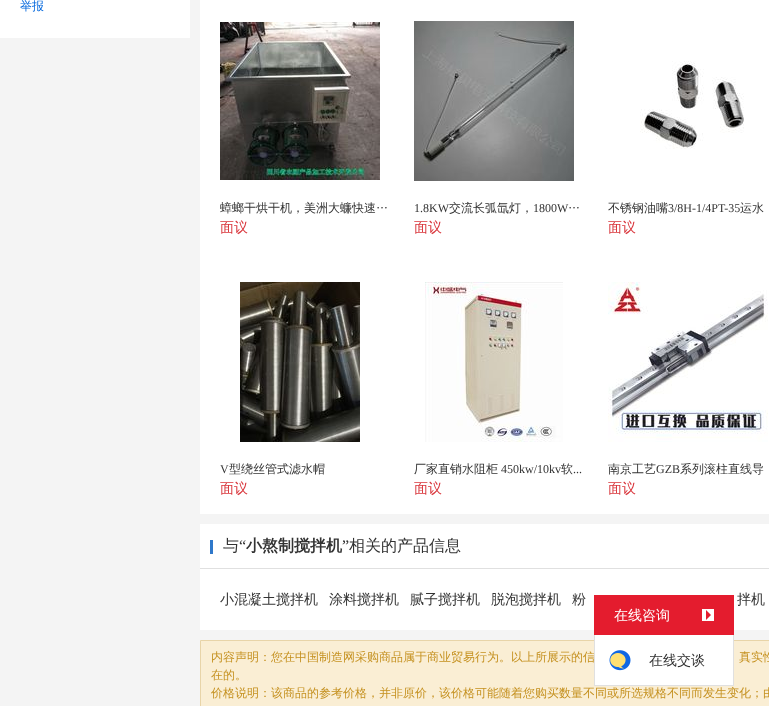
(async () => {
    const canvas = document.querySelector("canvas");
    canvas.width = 769;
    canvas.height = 706;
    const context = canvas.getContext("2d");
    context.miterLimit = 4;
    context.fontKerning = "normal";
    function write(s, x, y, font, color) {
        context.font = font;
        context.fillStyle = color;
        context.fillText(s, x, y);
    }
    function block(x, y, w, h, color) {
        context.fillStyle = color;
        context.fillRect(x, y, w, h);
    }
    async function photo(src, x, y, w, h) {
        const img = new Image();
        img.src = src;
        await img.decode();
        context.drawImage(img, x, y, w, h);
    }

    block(0, 0, 769, 706, "rgb(244, 244, 244)");
    block(0, 0, 190, 38, "rgb(255, 255, 255)");
    write("举报", 20, 10, "500 12px WenQuanYi Zen Hei", "rgb(0, 102, 221)");
    block(200, 0, 569, 514, "rgb(255, 255, 255)");
    await photo("media/1.png", 220, 22, 160, 158);
    write("蟑螂干烘干机，美洲大蠊快速…", 220, 212, "500 12px WenQuanYi Zen Hei", "rgb(51, 51, 51)");
    write("面议", 220, 232, "500 14px WenQuanYi Zen Hei", "rgb(217, 54, 60)");
    await photo("media/2.png", 414, 21, 160, 160);
    write("1.8KW", 414, 212, "12px Liberation Serif", "rgb(51, 51, 51)");
    write("交流长弧氙灯，", 449, 212, "500 12px WenQuanYi Zen Hei", "rgb(51, 51, 51)");
    write("1800W", 533, 212, "12px Liberation Serif", "rgb(51, 51, 51)");
    write("…", 568, 212, "500 12px WenQuanYi Zen Hei", "rgb(51, 51, 51)");
    write("面议", 414, 232, "500 14px WenQuanYi Zen Hei", "rgb(217, 54, 60)");
    await photo("media/3.png", 640, 61, 104, 88);
    write("不锈钢油嘴", 608, 212, "500 12px WenQuanYi Zen Hei", "rgb(51, 51, 51)");
    write("3/8H-1/4PT-35", 668, 212, "12px Liberation Serif", "rgb(51, 51, 51)");
    write("运水", 740, 212, "500 12px WenQuanYi Zen Hei", "rgb(51, 51, 51)");
    write("面议", 608, 232, "500 14px WenQuanYi Zen Hei", "rgb(217, 54, 60)");
    await photo("media/4.png", 240, 282, 120, 160);
    write("V", 220, 473, "12px Liberation Serif", "rgb(51, 51, 51)");
    write("型绕丝管式滤水帽", 229, 473, "500 12px WenQuanYi Zen Hei", "rgb(51, 51, 51)");
    write("面议", 220, 493, "500 14px WenQuanYi Zen Hei", "rgb(217, 54, 60)");
    await photo("media/5.png", 425, 282, 138, 160);
    write("厂家直销水阻柜", 414, 473, "500 12px WenQuanYi Zen Hei", "rgb(51, 51, 51)");
    write("450kw/10kv", 501, 473, "12px Liberation Serif", "rgb(51, 51, 51)");
    write("软", 561, 473, "500 12px WenQuanYi Zen Hei", "rgb(51, 51, 51)");
    write("...", 573, 473, "12px Liberation Serif", "rgb(51, 51, 51)");
    write("面议", 414, 493, "500 14px WenQuanYi Zen Hei", "rgb(217, 54, 60)");
    await photo("media/6.png", 608, 282, 160, 160);
    write("南京工艺", 608, 473, "500 12px WenQuanYi Zen Hei", "rgb(51, 51, 51)");
    write("GZB", 656, 473, "12px Liberation Serif", "rgb(51, 51, 51)");
    write("系列滚柱直线导", 680, 473, "500 12px WenQuanYi Zen Hei", "rgb(51, 51, 51)");
    write("面议", 608, 493, "500 14px WenQuanYi Zen Hei", "rgb(217, 54, 60)");
    block(200, 524, 569, 106, "rgb(255, 255, 255)");
    block(200, 568, 569, 1, "rgb(224, 224, 224)");
    block(210, 540, 3, 14, "rgb(47, 120, 202)");
    write("与", 223, 551, "500 16px WenQuanYi Zen Hei", "rgb(51, 51, 51)");
    write("“", 239, 551, "16px Liberation Serif", "rgb(51, 51, 51)");
    write("小熬制搅拌机", 246, 551, "bold 16px WenQuanYi Zen Hei", "rgb(51, 51, 51)");
    write("”", 342, 551, "16px Liberation Serif", "rgb(51, 51, 51)");
    write("相关的产品信息", 349, 551, "500 16px WenQuanYi Zen Hei", "rgb(51, 51, 51)");
    write("小混凝土搅拌机", 220, 604, "500 14px WenQuanYi Zen Hei", "rgb(51, 51, 51)");
    write("涂料搅拌机", 329, 604, "500 14px WenQuanYi Zen Hei", "rgb(51, 51, 51)");
    write("腻子搅拌机", 410, 604, "500 14px WenQuanYi Zen Hei", "rgb(51, 51, 51)");
    write("脱泡搅拌机", 491, 604, "500 14px WenQuanYi Zen Hei", "rgb(51, 51, 51)");
    write("粉", 572, 604, "500 14px WenQuanYi Zen Hei", "rgb(51, 51, 51)");
    write("拌机", 737, 604, "500 14px WenQuanYi Zen Hei", "rgb(51, 51, 51)");
    context.fillStyle = "rgb(250, 238, 212)";
    context.beginPath();
    context.rect(200.5, 640.5, 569, 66);
    context.fill();
    context.strokeStyle = "rgb(232, 212, 168)";
    context.stroke();
    write("内容声明：您在中国制造网采购商品属于商业贸易行为。以上所展示的信", 211, 661, "500 12px WenQuanYi Zen Hei", "rgb(197, 145, 32)");
    write("真实性", 739, 661, "500 12px WenQuanYi Zen Hei", "rgb(197, 145, 32)");
    write("在的。", 211, 679, "500 12px WenQuanYi Zen Hei", "rgb(197, 145, 32)");
    write("价格说明：该商品的参考价格，并非原价，该价格可能随着您购买数量不同或所选规格不同而发生变化；由", 211, 697, "500 12px WenQuanYi Zen Hei", "rgb(197, 145, 32)");
    block(594, 595, 140, 40, "rgb(228, 28, 46)");
    write("在线咨询", 614, 620, "500 14px WenQuanYi Zen Hei", "rgb(255, 255, 255)");
    block(702, 609, 12, 12, "rgb(255, 255, 255)");
    context.fillStyle = "rgb(228, 28, 46)";
    context.beginPath();
    context.moveTo(706, 620);
    context.lineTo(706, 610);
    context.lineTo(711, 615);
    context.closePath();
    context.fill();
    block(595, 635, 138, 50, "rgb(255, 255, 255)");
    block(733, 635, 1, 51, "rgb(224, 224, 224)");
    block(594, 685, 140, 1, "rgb(224, 224, 224)");
    block(594, 635, 1, 51, "rgb(224, 224, 224)");
    await photo("media/7.png", 609, 650, 22, 21);
    write("在线交谈", 649, 665, "500 14px WenQuanYi Zen Hei", "rgb(51, 51, 51)");
})();
